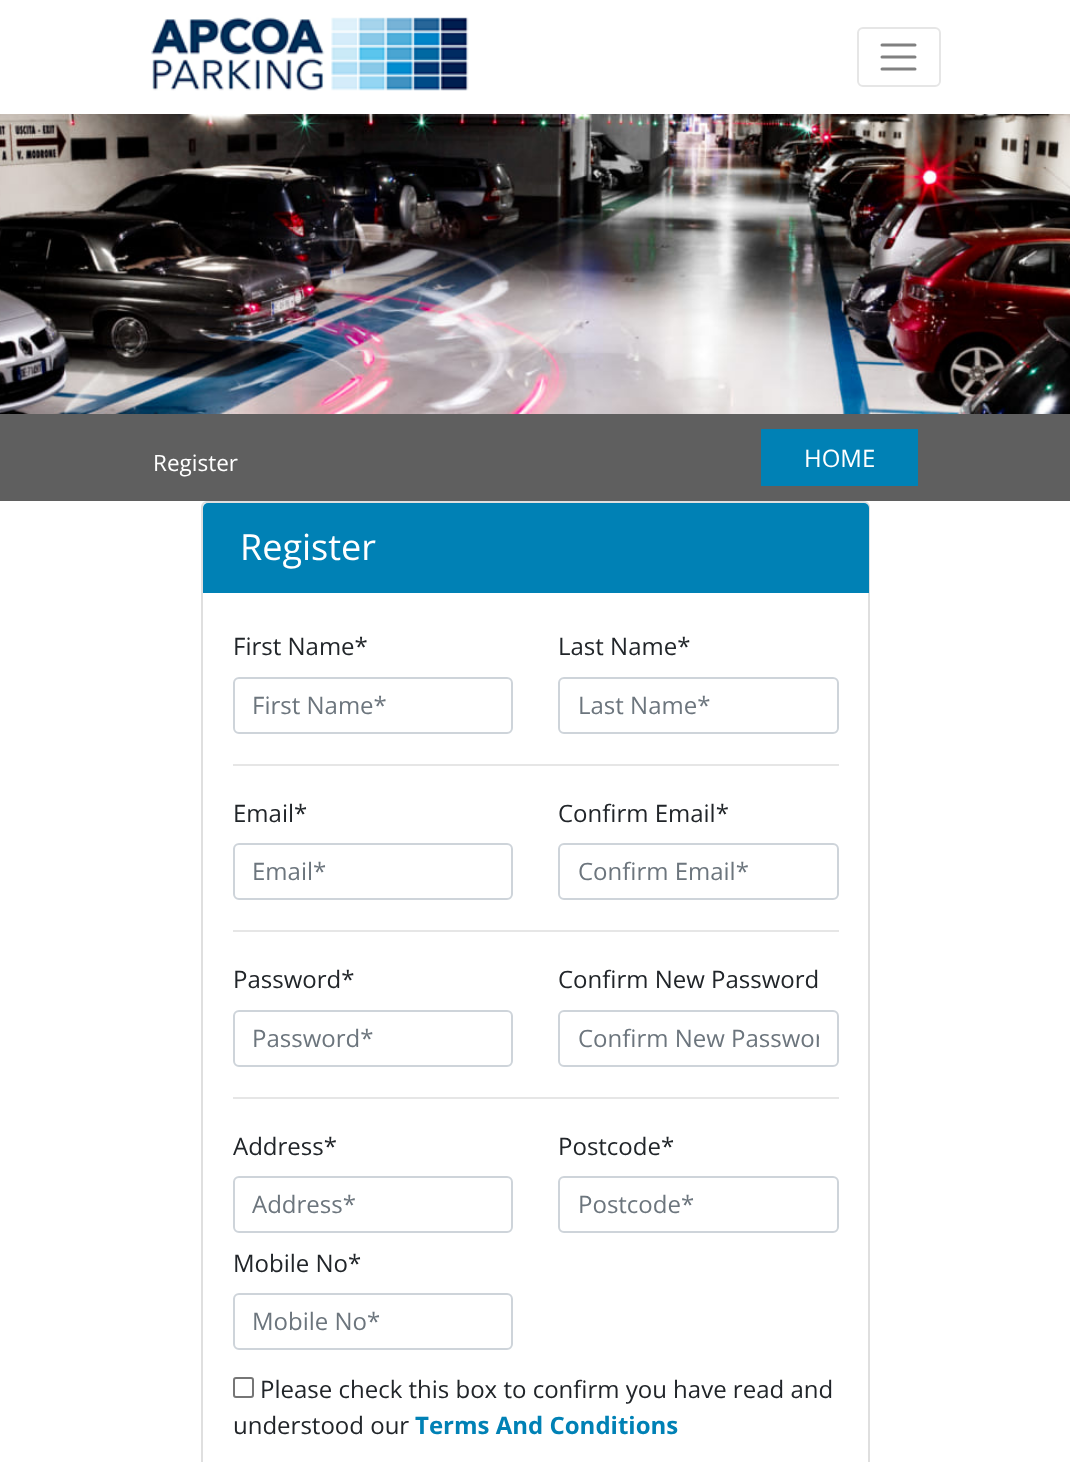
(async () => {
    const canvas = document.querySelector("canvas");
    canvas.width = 1070;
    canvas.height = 1462;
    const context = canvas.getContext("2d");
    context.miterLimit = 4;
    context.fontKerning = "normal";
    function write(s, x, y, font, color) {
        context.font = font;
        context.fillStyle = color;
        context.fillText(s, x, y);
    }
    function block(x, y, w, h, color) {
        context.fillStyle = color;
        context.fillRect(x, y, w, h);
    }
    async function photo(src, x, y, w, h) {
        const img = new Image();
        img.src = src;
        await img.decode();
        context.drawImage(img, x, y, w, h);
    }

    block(0, 0, 1070, 1462, "rgb(255, 255, 255)");
    await photo("media/1.png", 151, 17, 318, 74);
    context.beginPath();
    context.roundRect(858, 28, 82, 58, 5);
    context.strokeStyle = "rgb(230, 230, 230)";
    context.lineWidth = 2;
    context.stroke();
    context.beginPath();
    context.moveTo(882, 45);
    context.lineTo(915, 45);
    context.moveTo(882, 57);
    context.lineTo(915, 57);
    context.moveTo(882, 69);
    context.lineTo(915, 69);
    context.strokeStyle = "rgb(128, 128, 128)";
    context.lineWidth = 3;
    context.lineCap = "round";
    context.stroke();
    await photo("media/2.png", 0, 114, 1070, 300);
    block(0, 414, 1070, 87, "rgb(95, 95, 95)");
    write("Register", 153, 471, "22.5px Open Sans", "rgb(255, 255, 255)");
    block(761, 429, 157, 57, "rgb(0, 129, 181)");
    write("HOME", 804, 467, "24px Open Sans", "rgb(255, 255, 255)");
    context.beginPath();
    context.roundRect(202, 502, 667, 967, 5);
    context.strokeStyle = "rgb(223, 223, 223)";
    context.lineWidth = 2;
    context.stroke();
    context.fillStyle = "rgb(0, 129, 181)";
    context.beginPath();
    context.roundRect(203, 503, 666, 90, [5, 5, 0, 0]);
    context.fill();
    write("Register", 240, 560, "36px Open Sans", "rgb(255, 255, 255)");
    write("First Name*", 233, 655, "24px Open Sans", "rgb(33, 37, 41)");
    context.beginPath();
    context.roundRect(234, 678, 278, 55, 5);
    context.strokeStyle = "rgb(206, 212, 218)";
    context.stroke();
    write("First Name*", 252, 714, "24px Open Sans", "rgb(108, 117, 125)");
    write("Last Name*", 558, 655, "24px Open Sans", "rgb(33, 37, 41)");
    context.beginPath();
    context.roundRect(559, 678, 279, 55, 5);
    context.stroke();
    write("Last Name*", 578, 714, "24px Open Sans", "rgb(108, 117, 125)");
    block(233, 764, 606, 2, "rgb(230, 230, 230)");
    write("Email*", 233, 822, "24px Open Sans", "rgb(33, 37, 41)");
    context.beginPath();
    context.roundRect(234, 844, 278, 55, 5);
    context.stroke();
    write("Email*", 252, 880, "24px Open Sans", "rgb(108, 117, 125)");
    write("Confirm Email*", 558, 822, "24px Open Sans", "rgb(33, 37, 41)");
    context.beginPath();
    context.roundRect(559, 844, 279, 55, 5);
    context.stroke();
    write("Confirm Email*", 578, 880, "24px Open Sans", "rgb(108, 117, 125)");
    block(233, 930, 606, 2, "rgb(230, 230, 230)");
    write("Password*", 233, 988, "24px Open Sans", "rgb(33, 37, 41)");
    context.beginPath();
    context.roundRect(234, 1011, 278, 55, 5);
    context.stroke();
    write("Password*", 252, 1047, "24px Open Sans", "rgb(108, 117, 125)");
    write("Confirm New Password", 558, 988, "24px Open Sans", "rgb(33, 37, 41)");
    context.beginPath();
    context.roundRect(559, 1011, 279, 55, 5);
    context.stroke();
    context.save();
    context.beginPath();
    context.rect(578, 1022, 241, 33);
    context.clip();
    write("Confirm New Passwor", 578, 1047, "24px Open Sans", "rgb(108, 117, 125)");
    context.restore();
    block(233, 1097, 606, 2, "rgb(230, 230, 230)");
    write("Address*", 233, 1155, "24px Open Sans", "rgb(33, 37, 41)");
    context.beginPath();
    context.roundRect(234, 1177, 278, 55, 5);
    context.stroke();
    write("Address*", 252, 1213, "24px Open Sans", "rgb(108, 117, 125)");
    write("Postcode*", 558, 1155, "24px Open Sans", "rgb(33, 37, 41)");
    context.beginPath();
    context.roundRect(559, 1177, 279, 55, 5);
    context.stroke();
    write("Postcode*", 578, 1213, "24px Open Sans", "rgb(108, 117, 125)");
    write("Mobile No*", 233, 1272, "24px Open Sans", "rgb(33, 37, 41)");
    context.beginPath();
    context.roundRect(234, 1294, 278, 55, 5);
    context.stroke();
    write("Mobile No*", 252, 1330, "24px Open Sans", "rgb(108, 117, 125)");
    context.beginPath();
    context.roundRect(234, 1378, 19, 19, 2);
    context.strokeStyle = "rgb(118, 118, 118)";
    context.stroke();
    write("Please check this box to confirm you have read and", 260, 1398, "24px Open Sans", "rgb(33, 37, 41)");
    write("understood our", 233, 1434, "24px Open Sans", "rgb(33, 37, 41)");
    write("Terms And Conditions", 415, 1434, "bold 24px Open Sans", "rgb(0, 129, 181)");
})();
